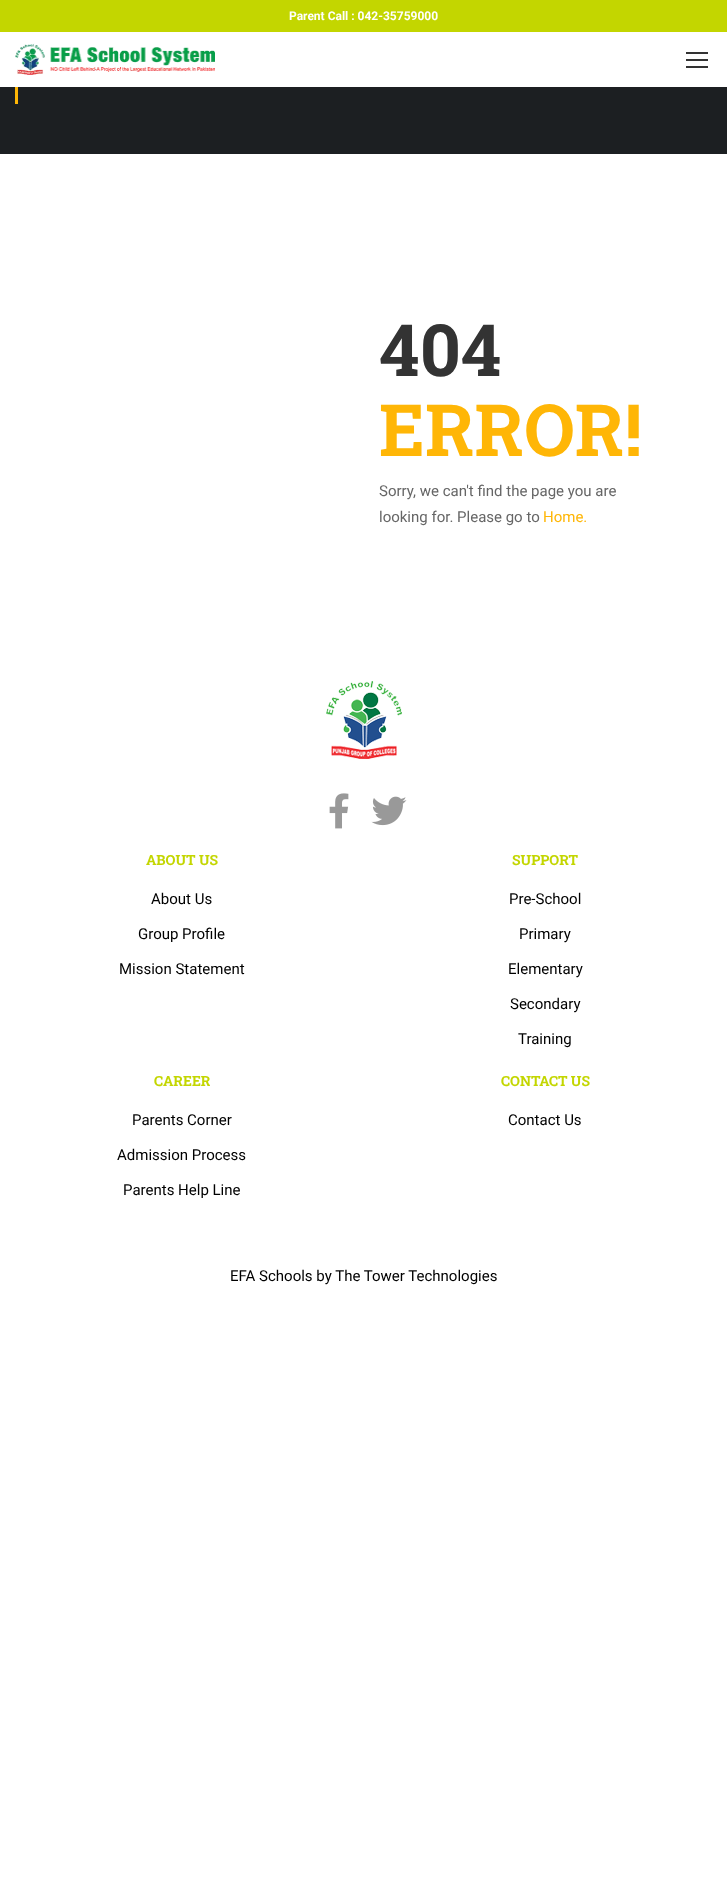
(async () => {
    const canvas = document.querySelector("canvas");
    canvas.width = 727;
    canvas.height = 1889;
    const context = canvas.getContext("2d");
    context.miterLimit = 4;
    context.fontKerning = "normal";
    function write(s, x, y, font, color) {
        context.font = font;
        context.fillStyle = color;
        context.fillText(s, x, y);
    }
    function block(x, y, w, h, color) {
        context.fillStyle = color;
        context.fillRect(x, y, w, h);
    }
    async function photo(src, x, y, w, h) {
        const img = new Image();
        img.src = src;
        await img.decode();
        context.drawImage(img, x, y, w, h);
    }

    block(0, 0, 727, 1889, "rgb(255, 255, 255)");
    block(0, 0, 727, 32, "rgb(195, 214, 0)");
    write("Parent Call : 042-35759000", 289, 20, "bold 12px Roboto", "rgb(255, 255, 255)");
    await photo("media/1.png", 15, 43, 200, 32);
    block(686, 52, 22, 2, "rgb(51, 51, 51)");
    block(686, 59, 22, 2, "rgb(51, 51, 51)");
    block(686, 66, 22, 2, "rgb(51, 51, 51)");
    block(0, 87, 727, 67, "rgb(28, 31, 34)");
    block(15, 87, 3, 17, "rgb(255, 182, 6)");
    write("404", 379, 376, "bold 72px Roboto Slab", "rgb(51, 51, 51)");
    write("ERROR!", 379, 456, "bold 72px Roboto Slab", "rgb(255, 182, 6)");
    write("Sorry, we can't find the page you are", 379, 496, "15px Roboto", "rgb(102, 102, 102)");
    write("looking for. Please go to", 379, 522, "15px Roboto", "rgb(102, 102, 102)");
    write("Home.", 543, 522, "15px Roboto", "rgb(255, 182, 6)");
    await photo("media/2.png", 326, 681, 76, 78);
    await photo("media/3.png", 329, 793, 20, 36);
    await photo("media/4.png", 371, 796, 36, 30);
    write("ABOUT US", 146, 865, "bold 14px Roboto Slab", "rgb(195, 214, 0)");
    write("About Us", 151, 904, "15px Roboto", "rgb(0, 0, 0)");
    write("Group Profile", 138, 939, "15px Roboto", "rgb(0, 0, 0)");
    write("Mission Statement", 119, 974, "15px Roboto", "rgb(0, 0, 0)");
    write("SUPPORT", 512, 865, "bold 14px Roboto Slab", "rgb(195, 214, 0)");
    write("Pre-School", 509, 904, "15px Roboto", "rgb(0, 0, 0)");
    write("Primary", 519, 939, "15px Roboto", "rgb(0, 0, 0)");
    write("Elementary", 508, 974, "15px Roboto", "rgb(0, 0, 0)");
    write("Secondary", 510, 1009, "15px Roboto", "rgb(0, 0, 0)");
    write("Training", 518, 1044, "15px Roboto", "rgb(0, 0, 0)");
    write("CAREER", 154, 1086, "bold 14px Roboto Slab", "rgb(195, 214, 0)");
    write("Parents Corner", 132, 1125, "15px Roboto", "rgb(0, 0, 0)");
    write("Admission Process", 117, 1160, "15px Roboto", "rgb(0, 0, 0)");
    write("Parents Help Line", 123, 1195, "15px Roboto", "rgb(0, 0, 0)");
    write("CONTACT US", 501, 1086, "bold 14px Roboto Slab", "rgb(195, 214, 0)");
    write("Contact Us", 508, 1125, "15px Roboto", "rgb(0, 0, 0)");
    write("EFA Schools by The Tower Technologies", 230, 1281, "15px Roboto", "rgb(0, 0, 0)");
})();
